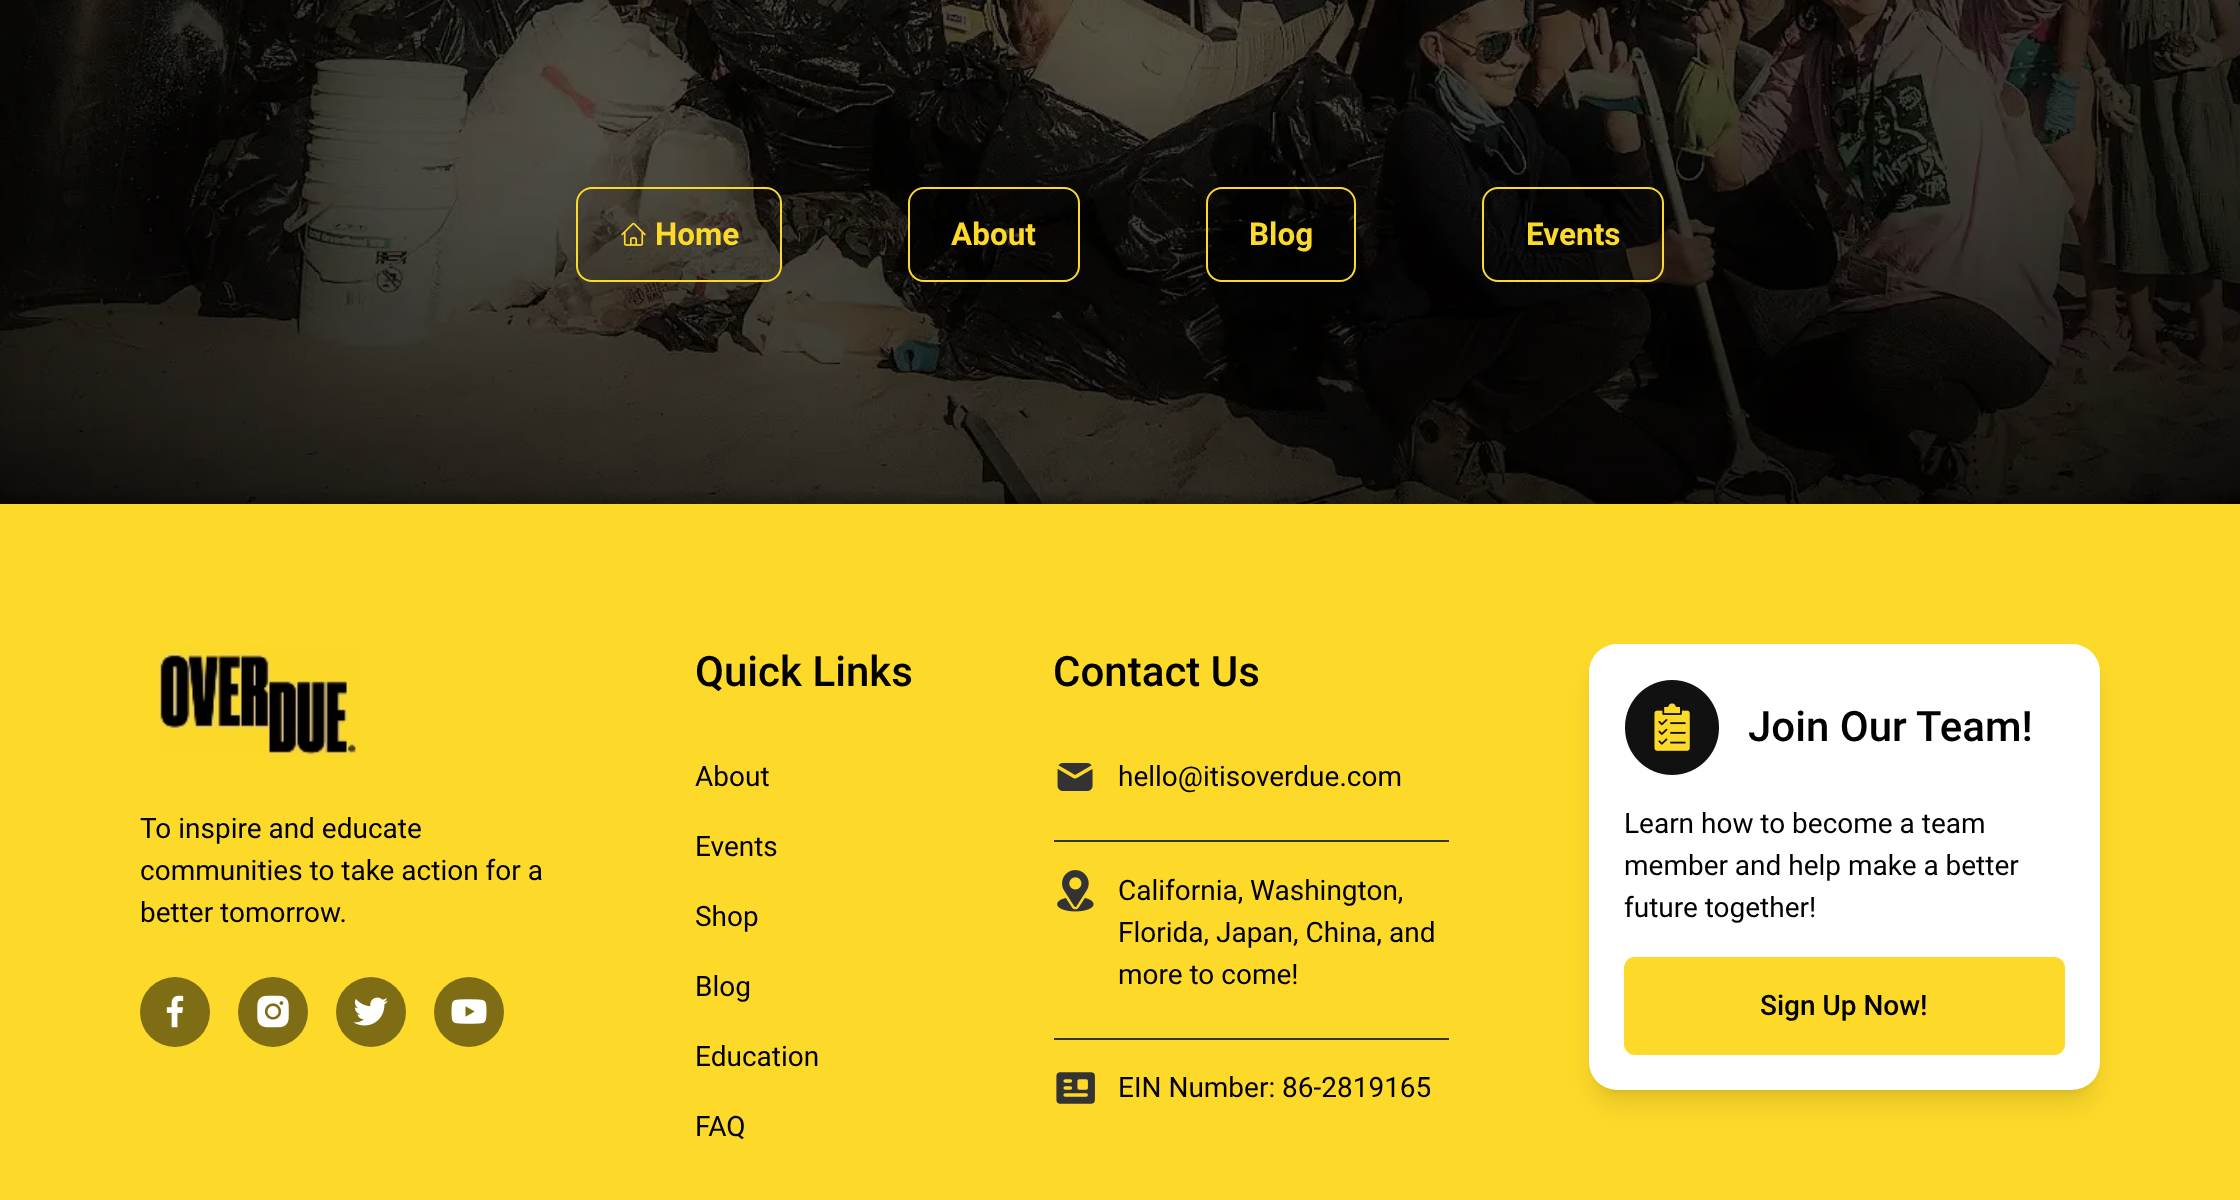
(async () => {
    const canvas = document.querySelector("canvas");
    canvas.width = 2240;
    canvas.height = 1200;
    const context = canvas.getContext("2d");
    context.miterLimit = 4;
    context.fontKerning = "normal";
    function write(s, x, y, font, color) {
        context.font = font;
        context.fillStyle = color;
        context.fillText(s, x, y);
    }
    function block(x, y, w, h, color) {
        context.fillStyle = color;
        context.fillRect(x, y, w, h);
    }
    function card(x, y, w, h, r, color) {
        context.fillStyle = color;
        context.beginPath();
        context.roundRect(x, y, w, h, r);
        context.fill();
    }
    async function photo(src, x, y, w, h) {
        const img = new Image();
        img.src = src;
        await img.decode();
        context.drawImage(img, x, y, w, h);
    }

    block(0, 0, 2240, 1200, "rgb(255, 255, 255)");
    await photo("media/1.png", 0, 0, 2240, 504);
    context.beginPath();
    context.roundRect(577, 188, 204, 93, 15);
    context.strokeStyle = "rgb(253, 217, 42)";
    context.lineWidth = 2;
    context.stroke();
    await photo("media/2.png", 621, 222, 25, 24);
    write("Home", 655, 245, "bold 31.5px Roboto", "rgb(253, 217, 42)");
    context.beginPath();
    context.roundRect(909, 188, 170, 93, 15);
    context.stroke();
    write("About", 951, 245, "bold 31.5px Roboto", "rgb(253, 217, 42)");
    context.beginPath();
    context.roundRect(1207, 188, 148, 93, 15);
    context.stroke();
    write("Blog", 1249, 245, "bold 31.5px Roboto", "rgb(253, 217, 42)");
    context.beginPath();
    context.roundRect(1483, 188, 180, 93, 15);
    context.stroke();
    write("Events", 1526, 245, "bold 31.5px Roboto", "rgb(253, 217, 42)");
    block(0, 504, 2240, 696, "rgb(253, 217, 42)");
    await photo("media/3.png", 159, 644, 206, 113);
    write("To inspire and educate", 140, 838, "28px Roboto", "rgb(0, 0, 0)");
    write("communities to take action for a", 140, 880, "28px Roboto", "rgb(0, 0, 0)");
    write("better tomorrow.", 140, 922, "28px Roboto", "rgb(0, 0, 0)");
    context.fillStyle = "rgb(127, 109, 21)";
    context.beginPath();
    context.arc(175, 1012, 35, 0, Math.PI * 2);
    context.fill();
    await photo("media/4.png", 166, 995, 18, 33);
    context.beginPath();
    context.arc(273, 1012, 35, 0, Math.PI * 2);
    context.fill();
    await photo("media/5.png", 257, 995, 32, 33);
    context.beginPath();
    context.arc(371, 1012, 35, 0, Math.PI * 2);
    context.fill();
    await photo("media/6.png", 353, 997, 35, 29);
    context.beginPath();
    context.arc(469, 1012, 35, 0, Math.PI * 2);
    context.fill();
    await photo("media/7.png", 451, 999, 36, 25);
    write("Quick Links", 695, 686, "500 42px Roboto", "rgb(0, 0, 0)");
    write("About", 695, 786, "28px Roboto", "rgb(0, 0, 0)");
    write("Events", 695, 856, "28px Roboto", "rgb(0, 0, 0)");
    write("Shop", 695, 926, "28px Roboto", "rgb(0, 0, 0)");
    write("Blog", 695, 996, "28px Roboto", "rgb(0, 0, 0)");
    write("Education", 695, 1066, "28px Roboto", "rgb(0, 0, 0)");
    write("FAQ", 695, 1136, "28px Roboto", "rgb(0, 0, 0)");
    write("Contact Us", 1053, 686, "500 42px Roboto", "rgb(0, 0, 0)");
    block(1054, 840, 395, 2, "rgb(51, 51, 51)");
    await photo("media/8.png", 1057, 763, 36, 28);
    write("hello@itisoverdue.com", 1118, 786, "28px Roboto", "rgb(0, 0, 0)");
    block(1054, 1038, 395, 2, "rgb(51, 51, 51)");
    await photo("media/9.png", 1057, 870, 37, 42);
    write("California, Washington,", 1118, 900, "28px Roboto", "rgb(0, 0, 0)");
    write("Florida, Japan, China, and", 1118, 942, "28px Roboto", "rgb(0, 0, 0)");
    write("more to come!", 1118, 984, "28px Roboto", "rgb(0, 0, 0)");
    await photo("media/10.png", 1056, 1072, 39, 32);
    write("EIN Number: 86-2819165", 1118, 1097, "28px Roboto", "rgb(0, 0, 0)");
    context.fillStyle = "rgba(0, 0, 0, 0.1)";
    context.filter = "blur(5px)";
    context.beginPath();
    context.roundRect(1596, 658, 497, 432, 21);
    context.fill();
    context.filter = "none";
    context.filter = "blur(13px)";
    context.beginPath();
    context.roundRect(1594, 667, 501, 436, 23);
    context.fill();
    context.filter = "none";
    card(1589, 644, 511, 446, 28, "rgb(255, 255, 255)");
    await photo("media/11.png", 1625, 680, 94, 95);
    write("Join Our Team!", 1748, 741, "500 42px Roboto", "rgb(0, 0, 0)");
    write("Learn how to become a team", 1624, 833, "28px Roboto", "rgb(0, 0, 0)");
    write("member and help make a better", 1624, 875, "28px Roboto", "rgb(0, 0, 0)");
    write("future together!", 1624, 917, "28px Roboto", "rgb(0, 0, 0)");
    card(1624, 957, 441, 98, 11, "rgb(253, 217, 42)");
    write("Sign Up Now!", 1760, 1015, "500 28px Roboto", "rgb(0, 0, 0)");
})();
